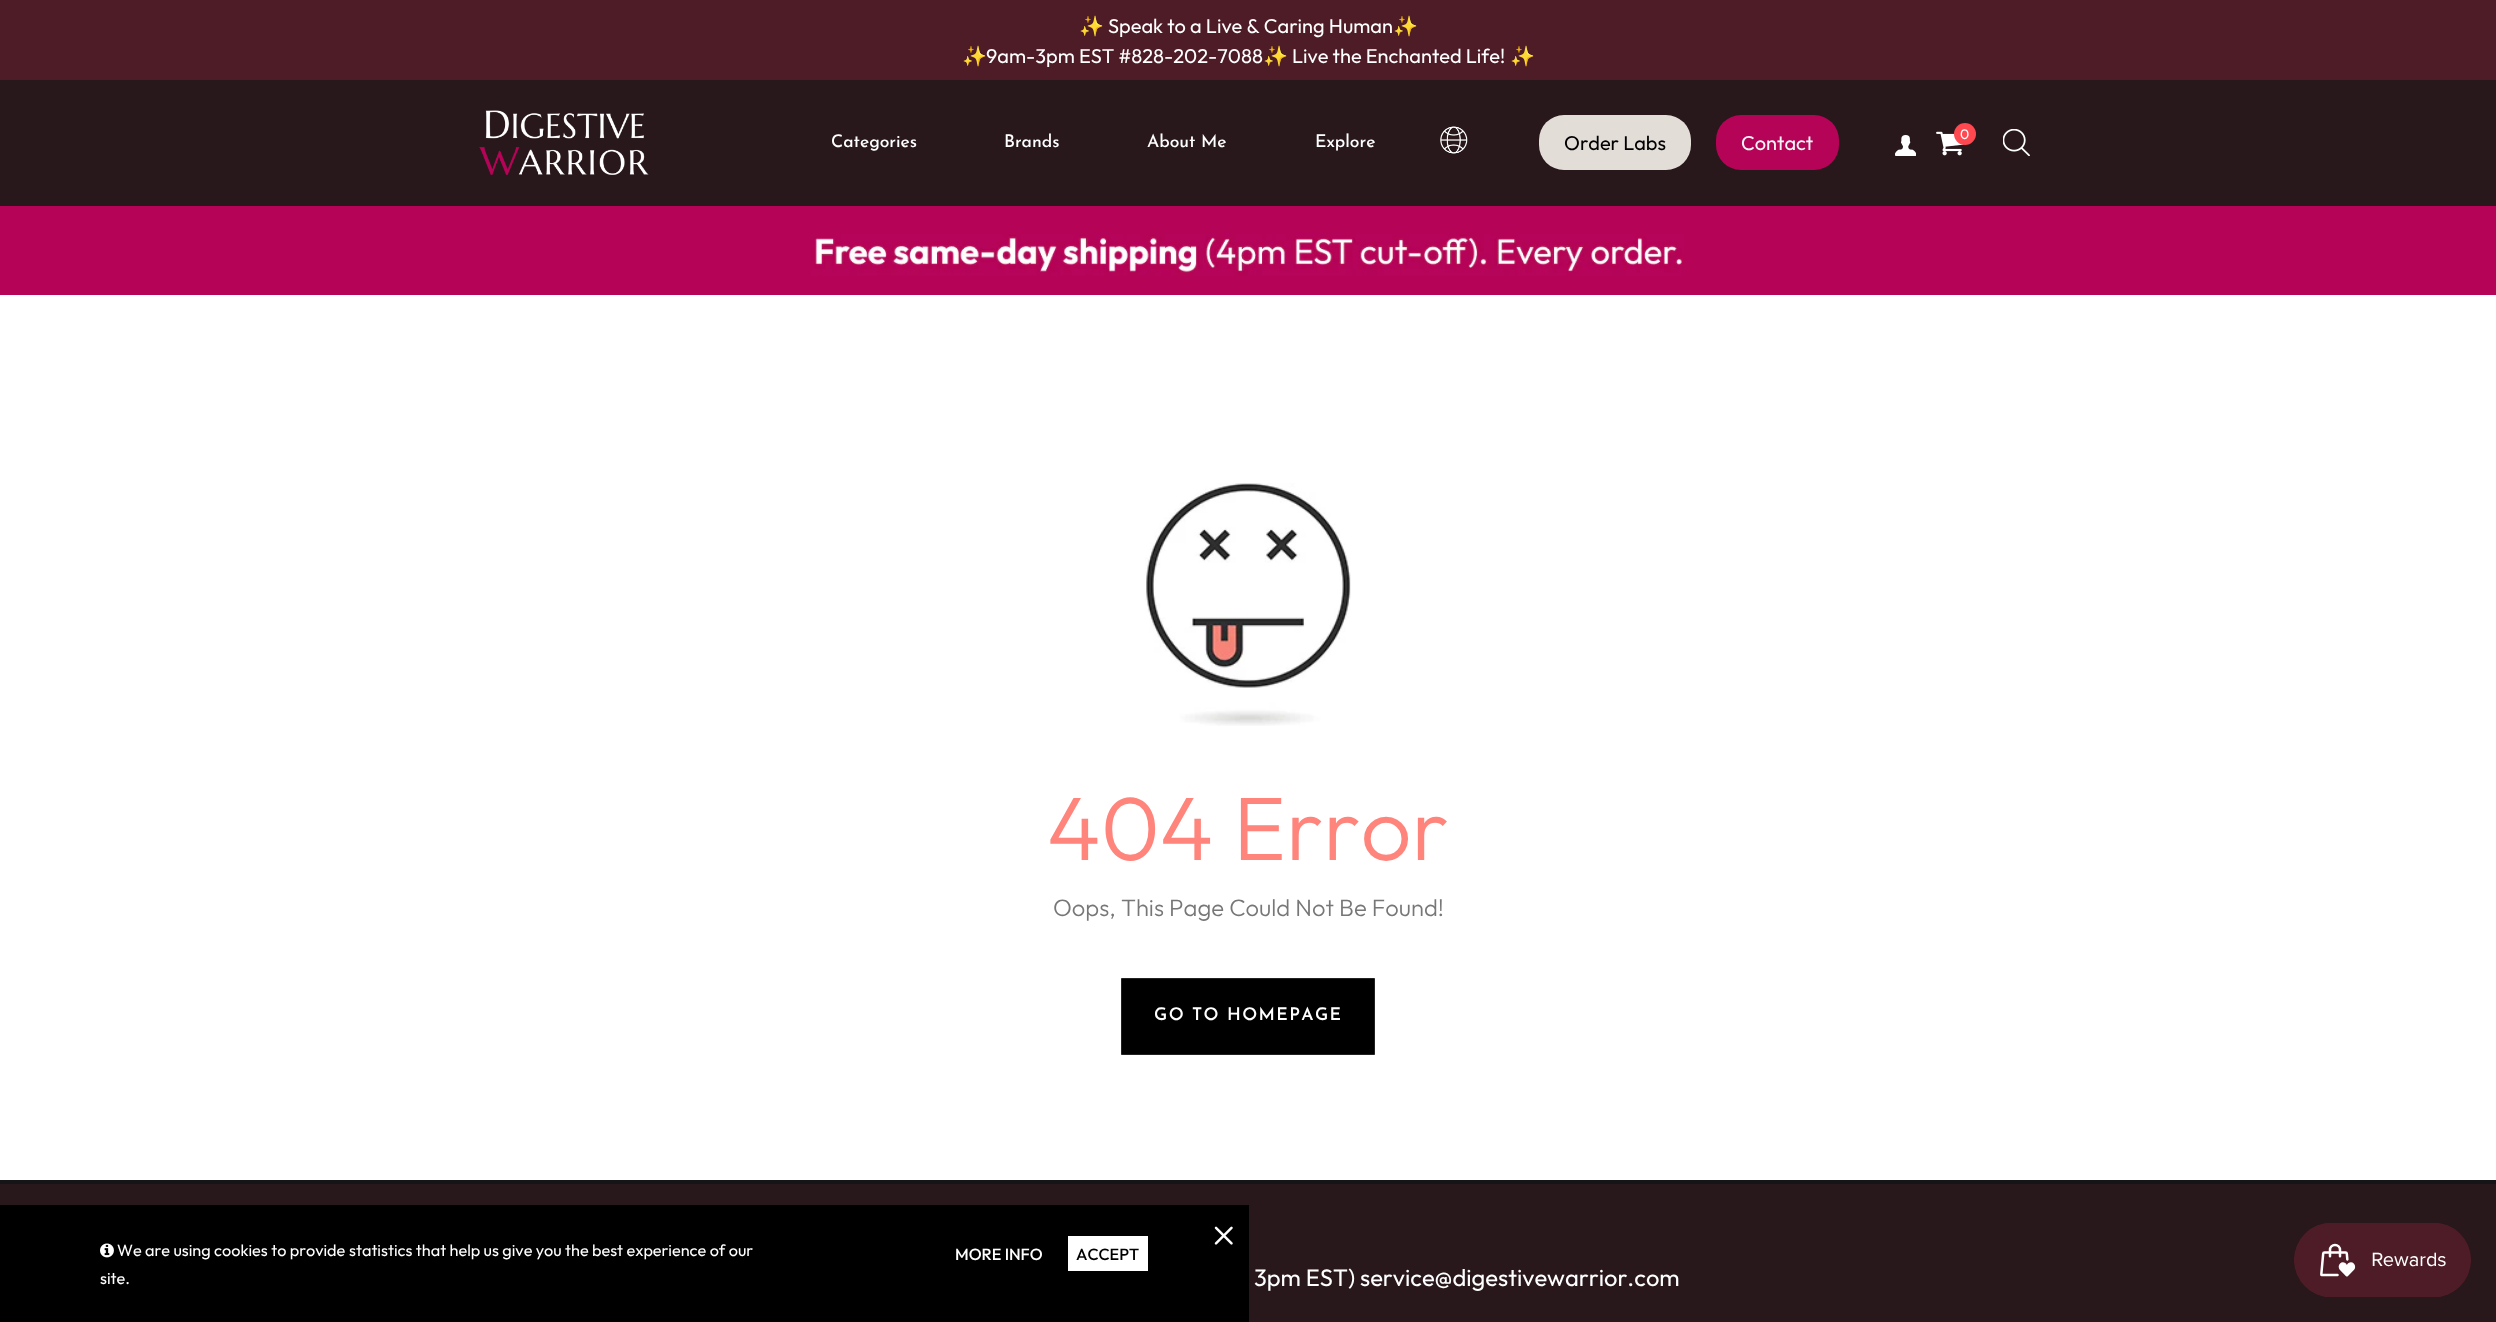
(async () => {
    const canvas = document.querySelector("canvas");
    canvas.width = 2496;
    canvas.height = 1322;
    const context = canvas.getContext("2d");
    context.miterLimit = 4;
    context.fontKerning = "none";
    function write(s, x, y, font, color) {
        context.font = font;
        context.fillStyle = color;
        context.fillText(s, x, y);
    }
    function block(x, y, w, h, color) {
        context.fillStyle = color;
        context.fillRect(x, y, w, h);
    }
    function card(x, y, w, h, r, color) {
        context.fillStyle = color;
        context.beginPath();
        context.roundRect(x, y, w, h, r);
        context.fill();
    }
    async function photo(src, x, y, w, h) {
        const img = new Image();
        img.src = src;
        await img.decode();
        context.drawImage(img, x, y, w, h);
    }

    block(0, 0, 2496, 1322, "rgb(255, 255, 255)");
    block(0, 1184, 2496, 138, "rgb(40, 24, 28)");
    block(0, 1205, 1249, 117, "rgb(0, 0, 0)");
    await photo("media/1.png", 1214, 1226, 19, 19);
    await photo("media/2.png", 100, 1243, 14, 15);
    write("We are using cookies to provide", 117, 1256, "16.25px Outfit", "rgb(255, 255, 255)");
    write("statistics that help us give you the best experience of our", 349, 1256, "16.25px Outfit", "rgb(255, 255, 255)");
    write("site.", 100, 1284, "16.25px Outfit", "rgb(255, 255, 255)");
    write("MORE INFO", 955, 1260, "500 16.25px Outfit", "rgb(255, 255, 255)");
    block(1068, 1236, 80, 35, "rgb(255, 255, 255)");
    write("ACCEPT", 1076, 1260, "500 16.25px Outfit", "rgb(0, 0, 0)");
    block(0, 80, 2496, 126, "rgb(40, 24, 28)");
    block(0, 0, 2496, 80, "rgb(77, 28, 38)");
    write("✨", 1079, 33, "20px Noto Color Emoji", "rgb(255, 255, 255)");
    write("Speak to a Live & Caring Human", 1108, 33, "20px Outfit", "rgb(255, 255, 255)");
    write("✨", 1393, 33, "20px Noto Color Emoji", "rgb(255, 255, 255)");
    write("✨", 962, 63, "20px Noto Color Emoji", "rgb(255, 255, 255)");
    write("9am-3pm EST #828-202-7088", 986, 63, "20px Outfit", "rgb(255, 255, 255)");
    write("✨", 1263, 63, "20px Noto Color Emoji", "rgb(255, 255, 255)");
    write("Live the Enchanted Life!", 1292, 63, "20px Outfit", "rgb(255, 255, 255)");
    write("✨", 1510, 63, "20px Noto Color Emoji", "rgb(255, 255, 255)");
    await photo("media/3.png", 479, 110, 170, 65);
    write("Categories", 831, 147, "500 17.5px Josefin Sans", "rgb(255, 255, 255)");
    write("Brands", 1004, 147, "500 17.5px Josefin Sans", "rgb(255, 255, 255)");
    write("About Me", 1147, 147, "500 17.5px Josefin Sans", "rgb(255, 255, 255)");
    write("Explore", 1315, 147, "500 17.5px Josefin Sans", "rgb(255, 255, 255)");
    await photo("media/4.png", 1440, 126, 28, 28);
    card(1539, 115, 152, 55, 25, "rgb(227, 221, 216)");
    write("Order Labs", 1564, 150, "20px Outfit", "rgb(0, 0, 0)");
    card(1716, 115, 123, 55, 25, "rgb(181, 4, 87)");
    write("Contact", 1741, 150, "20px Outfit", "rgb(246, 246, 246)");
    await photo("media/5.png", 1895, 135, 21, 21);
    await photo("media/6.png", 1936, 131, 28, 25);
    context.fillStyle = "rgb(255, 72, 80)";
    context.beginPath();
    context.arc(1965, 134, 11, 0, Math.PI * 2);
    context.fill();
    write("0", 1960, 139, "14px Outfit", "rgb(255, 255, 255)");
    await photo("media/7.png", 2003, 129, 27, 27);
    block(0, 206, 2496, 89, "rgb(181, 4, 87)");
    await photo("media/8.png", 811, 234, 873, 42);
    await photo("media/9.png", 1145, 483, 206, 243);
    write("404 Error", 1047, 860, "300 90px Outfit", "rgb(255, 132, 123)");
    write("Oops, This Page Could Not Be Found!", 1053, 916, "300 23.75px Outfit", "rgb(119, 119, 119)");
    context.fillStyle = "rgb(0, 0, 0)";
    context.beginPath();
    context.rect(1121.5, 978.5, 253, 76);
    context.fill();
    context.strokeStyle = "rgb(34, 34, 34)";
    context.stroke();
    context.letterSpacing = "1.4px";
    write("GO TO HOMEPAGE", 1154, 1020, "600 17.5px Josefin Sans", "rgb(255, 255, 255)");
    block(0, 1180, 2496, 4, "rgb(21, 20, 22)");
    context.letterSpacing = "0px";
    write("3pm EST) service@digestivewarrior.com", 1254, 1286, "23.75px Outfit", "rgb(255, 255, 255)");
    await photo("media/10.png", 2294, 1223, 177, 74);
})();
